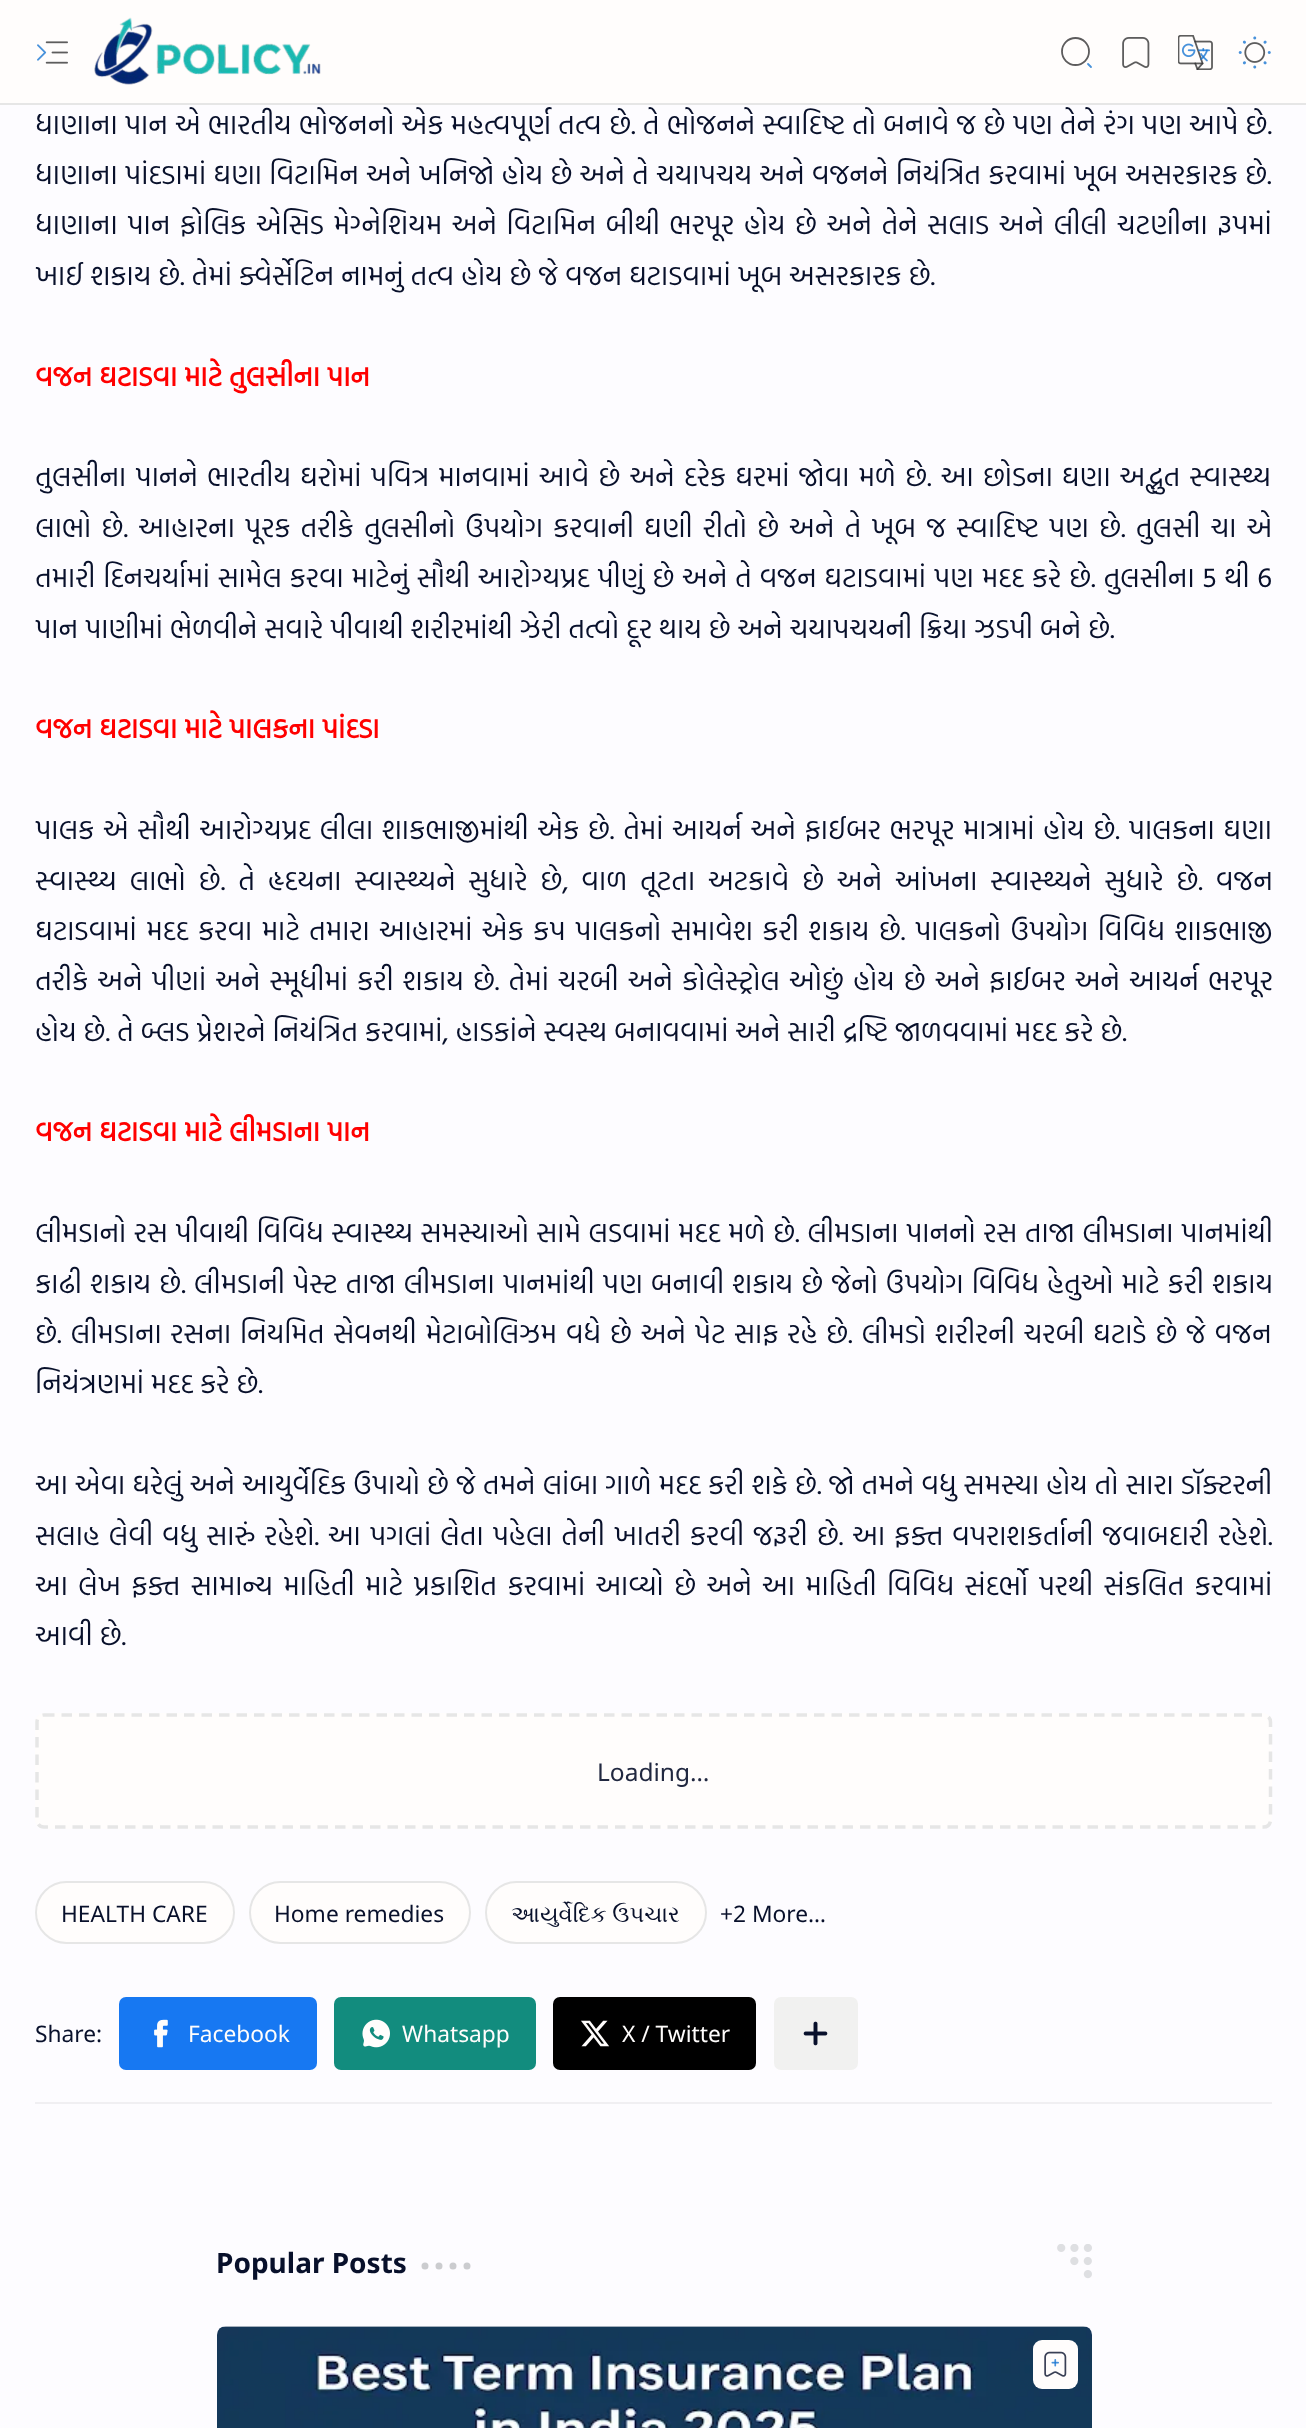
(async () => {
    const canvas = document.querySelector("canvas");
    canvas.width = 1306;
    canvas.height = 2428;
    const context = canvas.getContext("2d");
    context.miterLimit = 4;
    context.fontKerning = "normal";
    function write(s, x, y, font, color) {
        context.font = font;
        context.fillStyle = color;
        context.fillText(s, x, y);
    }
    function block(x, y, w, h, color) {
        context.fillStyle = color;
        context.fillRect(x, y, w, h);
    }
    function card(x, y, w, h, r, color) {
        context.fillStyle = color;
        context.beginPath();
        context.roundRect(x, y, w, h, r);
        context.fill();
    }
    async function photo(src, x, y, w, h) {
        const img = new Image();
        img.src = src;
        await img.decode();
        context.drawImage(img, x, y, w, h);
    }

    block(0, 0, 1306, 2428, "rgb(253, 252, 255)");
    block(0, 0, 1306, 103, "rgb(255, 253, 252)");
    await photo("media/1.png", 37, 41, 31, 23);
    await photo("media/2.png", 94, 17, 227, 68);
    context.beginPath();
    context.arc(1075.5, 51.5, 13.5, 0, Math.PI * 2);
    context.strokeStyle = "rgb(93, 92, 93)";
    context.lineWidth = 1.8;
    context.stroke();
    context.beginPath();
    context.moveTo(1091, 67);
    context.lineTo(1088, 64);
    context.strokeStyle = "rgb(71, 145, 218)";
    context.lineCap = "round";
    context.lineJoin = "round";
    context.stroke();
    await photo("media/3.png", 1122, 37, 28, 31);
    await photo("media/4.png", 1178, 35, 35, 35);
    await photo("media/5.png", 1238, 36, 33, 33);
    block(0, 103, 1306, 2, "rgb(230, 230, 230)");
    context.wordSpacing = "0.3px";
    write("ધાણાના પાન એ ભારતીય ભોજનનો એક મહત્વપૂર્ણ તત્વ છે. તે ભોજનને સ્વાદિષ્ટ તો બનાવે જ છે પણ તેને રંગ પણ આપે છે.", 35, 134, "28px Hind Vadodara", "rgb(8, 16, 43)");
    context.wordSpacing = "0.4px";
    write("ધાણાના પાંદડામાં ઘણા વિટામિન અને ખનિજો હોય છે અને તે ચયાપચય અને વજનને નિયંત્રિત કરવામાં ખૂબ અસરકારક છે.", 35, 184, "28px Hind Vadodara", "rgb(8, 16, 43)");
    context.wordSpacing = "2.75px";
    write("ધાણાના પાન ફોલિક એસિડ મેગ્નેશિયમ અને વિટામિન બીથી ભરપૂર હોય છે અને તેને સલાડ અને લીલી ચટણીના રૂપમાં", 35, 234, "28px Hind Vadodara", "rgb(8, 16, 43)");
    context.wordSpacing = "0px";
    write("ખાઈ શકાય છે. તેમાં ક્વેર્સેટિન નામનું તત્વ હોય છે જે વજન ઘટાડવામાં ખૂબ અસરકારક છે.", 35, 285, "28px Hind Vadodara", "rgb(8, 16, 43)");
    write("વજન ઘટાડવા માટે તુલસીના પાન", 35, 386, "bold 28px Hind Vadodara", "rgb(255, 0, 0)");
    context.wordSpacing = "2.25px";
    write("તુલસીના પાનને ભારતીય ઘરોમાં પવિત્ર માનવામાં આવે છે અને દરેક ઘરમાં જોવા મળે છે. આ છોડના ઘણા અદ્ભુત સ્વાસ્થ્ય", 35, 486, "28px Hind Vadodara", "rgb(8, 16, 43)");
    context.wordSpacing = "3.25px";
    write("લાભો છે. આહારના પૂરક તરીકે તુલસીનો ઉપયોગ કરવાની ઘણી રીતો છે અને તે ખૂબ જ સ્વાદિષ્ટ પણ છે. તુલસી ચા એ", 35, 537, "28px Hind Vadodara", "rgb(8, 16, 43)");
    context.wordSpacing = "0.9px";
    write("તમારી દિનચર્યામાં સામેલ કરવા માટેનું સૌથી આરોગ્યપ્રદ પીણું છે અને તે વજન ઘટાડવામાં પણ મદદ કરે છે. તુલસીના 5 થી 6", 35, 587, "28px Hind Vadodara", "rgb(8, 16, 43)");
    context.wordSpacing = "0px";
    write("પાન પાણીમાં ભેળવીને સવારે પીવાથી શરીરમાંથી ઝેરી તત્વો દૂર થાય છે અને ચયાપચયની ક્રિયા ઝડપી બને છે.", 35, 638, "28px Hind Vadodara", "rgb(8, 16, 43)");
    write("વજન ઘટાડવા માટે પાલકના પાંદડા", 35, 738, "bold 28px Hind Vadodara", "rgb(255, 0, 0)");
    context.wordSpacing = "1.8px";
    write("પાલક એ સૌથી આરોગ્યપ્રદ લીલા શાકભાજીમાંથી એક છે. તેમાં આયર્ન અને ફાઈબર ભરપૂર માત્રામાં હોય છે. પાલકના ઘણા", 35, 839, "28px Hind Vadodara", "rgb(8, 16, 43)");
    context.wordSpacing = "6px";
    write("સ્વાસ્થ્ય લાભો છે. તે હૃદયના સ્વાસ્થ્યને સુધારે છે, વાળ તૂટતા અટકાવે છે અને આંખના સ્વાસ્થ્યને સુધારે છે. વજન", 35, 890, "28px Hind Vadodara", "rgb(8, 16, 43)");
    context.wordSpacing = "2.6px";
    write("ઘટાડવામાં મદદ કરવા માટે તમારા આહારમાં એક કપ પાલકનો સમાવેશ કરી શકાય છે. પાલકનો ઉપયોગ વિવિધ શાકભાજી", 35, 940, "28px Hind Vadodara", "rgb(8, 16, 43)");
    context.wordSpacing = "2.25px";
    write("તરીકે અને પીણાં અને સ્મૂધીમાં કરી શકાય છે. તેમાં ચરબી અને કોલેસ્ટ્રોલ ઓછું હોય છે અને ફાઈબર અને આયર્ન ભરપૂર", 35, 990, "28px Hind Vadodara", "rgb(8, 16, 43)");
    context.wordSpacing = "0px";
    write("હોય છે. તે બ્લડ પ્રેશરને નિયંત્રિત કરવામાં, હાડકાંને સ્વસ્થ બનાવવામાં અને સારી દ્રષ્ટિ જાળવવામાં મદદ કરે છે.", 35, 1041, "28px Hind Vadodara", "rgb(8, 16, 43)");
    write("વજન ઘટાડવા માટે લીમડાના પાન", 35, 1141, "bold 28px Hind Vadodara", "rgb(255, 0, 0)");
    context.wordSpacing = "0.7px";
    write("લીમડાનો રસ પીવાથી વિવિધ સ્વાસ્થ્ય સમસ્યાઓ સામે લડવામાં મદદ મળે છે. લીમડાના પાનનો રસ તાજા લીમડાના પાનમાંથી", 35, 1242, "28px Hind Vadodara", "rgb(8, 16, 43)");
    context.wordSpacing = "1.2px";
    write("કાઢી શકાય છે. લીમડાની પેસ્ટ તાજા લીમડાના પાનમાંથી પણ બનાવી શકાય છે જેનો ઉપયોગ વિવિધ હેતુઓ માટે કરી શકાય", 35, 1293, "28px Hind Vadodara", "rgb(8, 16, 43)");
    context.wordSpacing = "1.9px";
    write("છે. લીમડાના રસના નિયમિત સેવનથી મેટાબોલિઝમ વધે છે અને પેટ સાફ રહે છે. લીમડો શરીરની ચરબી ઘટાડે છે જે વજન", 35, 1343, "28px Hind Vadodara", "rgb(8, 16, 43)");
    context.wordSpacing = "0px";
    write("નિયંત્રણમાં મદદ કરે છે.", 35, 1393, "28px Hind Vadodara", "rgb(8, 16, 43)");
    context.wordSpacing = "0.15px";
    write("આ એવા ઘરેલું અને આયુર્વેદિક ઉપાયો છે જે તમને લાંબા ગાળે મદદ કરી શકે છે. જો તમને વધુ સમસ્યા હોય તો સારા ડૉક્ટરની", 35, 1494, "28px Hind Vadodara", "rgb(8, 16, 43)");
    context.wordSpacing = "2.1px";
    write("સલાહ લેવી વધુ સારું રહેશે. આ પગલાં લેતા પહેલા તેની ખાતરી કરવી જરૂરી છે. આ ફક્ત વપરાશકર્તાની જવાબદારી રહેશે.", 35, 1545, "28px Hind Vadodara", "rgb(8, 16, 43)");
    context.wordSpacing = "3.5px";
    write("આ લેખ ફક્ત સામાન્ય માહિતી માટે પ્રકાશિત કરવામાં આવ્યો છે અને આ માહિતી વિવિધ સંદર્ભો પરથી સંકલિત કરવામાં", 35, 1595, "28px Hind Vadodara", "rgb(8, 16, 43)");
    context.wordSpacing = "0px";
    write("આવી છે.", 35, 1645, "28px Hind Vadodara", "rgb(8, 16, 43)");
    card(35, 1713, 1237, 116, 9, "rgb(255, 253, 252)");
    context.beginPath();
    context.moveTo(44, 1715);
    context.lineTo(1263.5, 1715);
    context.bezierCurveTo(1267.5, 1715, 1270.5, 1718, 1270.5, 1722);
    context.lineTo(1270.5, 1820);
    context.bezierCurveTo(1270.5, 1824, 1267.5, 1827, 1263.5, 1827);
    context.lineTo(44, 1827);
    context.bezierCurveTo(40, 1827, 37, 1824, 37, 1820);
    context.lineTo(37, 1722);
    context.bezierCurveTo(37, 1718, 40, 1715, 44, 1715);
    context.closePath();
    context.strokeStyle = "rgb(230, 230, 230)";
    context.lineWidth = 3.5;
    context.lineCap = "butt";
    context.lineJoin = "miter";
    context.setLineDash([10.5, 7]);
    context.stroke();
    write("Loading…", 597, 1781, "24.5px Noto Sans", "rgb(33, 40, 64)");
    context.fillStyle = "rgb(255, 253, 252)";
    context.beginPath();
    context.roundRect(36, 1882, 198, 61, 30.5);
    context.fill();
    context.lineWidth = 2;
    context.setLineDash([]);
    context.stroke();
    write("HEALTH CARE", 61, 1922, "22.75px Noto Sans", "rgb(8, 16, 43)");
    context.fillStyle = "rgb(255, 253, 252)";
    context.beginPath();
    context.roundRect(250, 1882, 220, 61, 30.5);
    context.fill();
    context.stroke();
    write("Home remedies", 274, 1922, "22.75px Noto Sans", "rgb(8, 16, 43)");
    context.fillStyle = "rgb(255, 253, 252)";
    context.beginPath();
    context.roundRect(486, 1882, 220, 61, 30.5);
    context.fill();
    context.stroke();
    write("આયુર્વેદિક ઉપચાર", 511, 1922, "22.75px FreeSerif", "rgb(8, 16, 43)");
    write("+2 More…", 720, 1922, "22.75px Noto Sans", "rgb(8, 16, 43)");
    block(35, 2102, 1237, 2, "rgb(240, 239, 242)");
    write("Share:", 35, 2042, "22.75px Noto Sans", "rgb(8, 16, 43)");
    card(119, 1997, 198, 73, 7, "rgb(23, 120, 242)");
    await photo("media/6.png", 154, 2019, 14, 29);
    write("Facebook", 188, 2042, "22.75px Noto Sans", "rgb(255, 253, 252)");
    card(334, 1997, 202, 73, 7, "rgb(18, 140, 126)");
    await photo("media/7.png", 362, 2019, 28, 29);
    write("Whatsapp", 402, 2042, "22.75px Noto Sans", "rgb(255, 253, 252)");
    card(553, 1997, 203, 73, 7, "rgb(0, 0, 0)");
    await photo("media/8.png", 581, 2020, 29, 27);
    write("X / Twitter", 622, 2042, "22.75px Noto Sans", "rgb(255, 253, 252)");
    card(774, 1997, 84, 73, 7, "rgb(241, 241, 240)");
    await photo("media/9.png", 803, 2021, 25, 25);
    write("Popular Posts", 216, 2273, "bold 28px Noto Sans", "rgb(8, 16, 43)");
    context.beginPath();
    context.moveTo(425, 2266);
    context.lineTo(469, 2266);
    context.strokeStyle = "rgb(203, 204, 207)";
    context.lineWidth = 7;
    context.lineCap = "round";
    context.setLineDash([0, 14]);
    context.stroke();
    await photo("media/10.png", 1057, 2244, 35, 35);
    card(217, 2326, 875, 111, 9, "rgb(240, 239, 242)");
    await photo("media/11.png", 217, 2326, 875, 102);
    card(1033, 2340, 45, 49, 9, "rgb(255, 253, 252)");
    await photo("media/12.png", 1044, 2351, 23, 26);
})();
